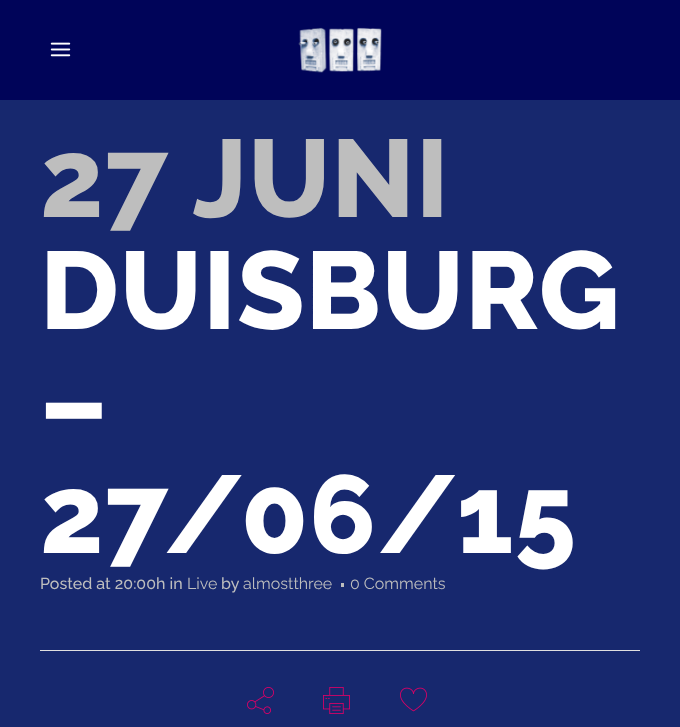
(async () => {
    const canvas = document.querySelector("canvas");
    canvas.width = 680;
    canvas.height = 727;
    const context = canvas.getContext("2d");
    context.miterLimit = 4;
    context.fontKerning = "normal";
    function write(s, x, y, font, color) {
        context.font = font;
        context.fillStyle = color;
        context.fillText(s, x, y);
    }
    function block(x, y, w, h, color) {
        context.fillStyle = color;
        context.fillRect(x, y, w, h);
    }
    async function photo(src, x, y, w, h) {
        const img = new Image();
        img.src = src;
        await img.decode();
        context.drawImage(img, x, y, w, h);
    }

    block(0, 0, 680, 727, "rgb(23, 40, 110)");
    block(0, 0, 680, 100, "rgb(0, 4, 89)");
    await photo("media/1.png", 50, 42, 21, 15);
    await photo("media/2.png", 298, 27, 84, 46);
    context.letterSpacing = "1px";
    write("27 JUNI", 40, 217, "800 110px Raleway", "rgb(190, 190, 190)");
    write("DUISBURG", 40, 329, "800 110px Raleway", "rgb(255, 255, 255)");
    write("–", 40, 441, "800 110px Raleway", "rgb(255, 255, 255)");
    write("27/06/15", 40, 553, "800 110px Raleway", "rgb(255, 255, 255)");
    context.letterSpacing = "0px";
    write("Posted at 20:00h in", 40, 589, "500 16px Raleway", "rgb(190, 190, 190)");
    write("Live", 187, 589, "16px Raleway", "rgb(190, 190, 190)");
    write("by", 221, 589, "500 16px Raleway", "rgb(190, 190, 190)");
    write("almostthree", 243, 589, "16px Raleway", "rgb(190, 190, 190)");
    block(341, 583, 3, 4, "rgb(190, 190, 190)");
    write("0 Comments", 350, 589, "16px Raleway", "rgb(190, 190, 190)");
    block(40, 650, 600, 1, "rgb(224, 224, 224)");
    await photo("media/3.png", 247, 687, 27, 27);
    await photo("media/4.png", 323, 687, 27, 27);
    await photo("media/5.png", 400, 687, 27, 25);
})();
